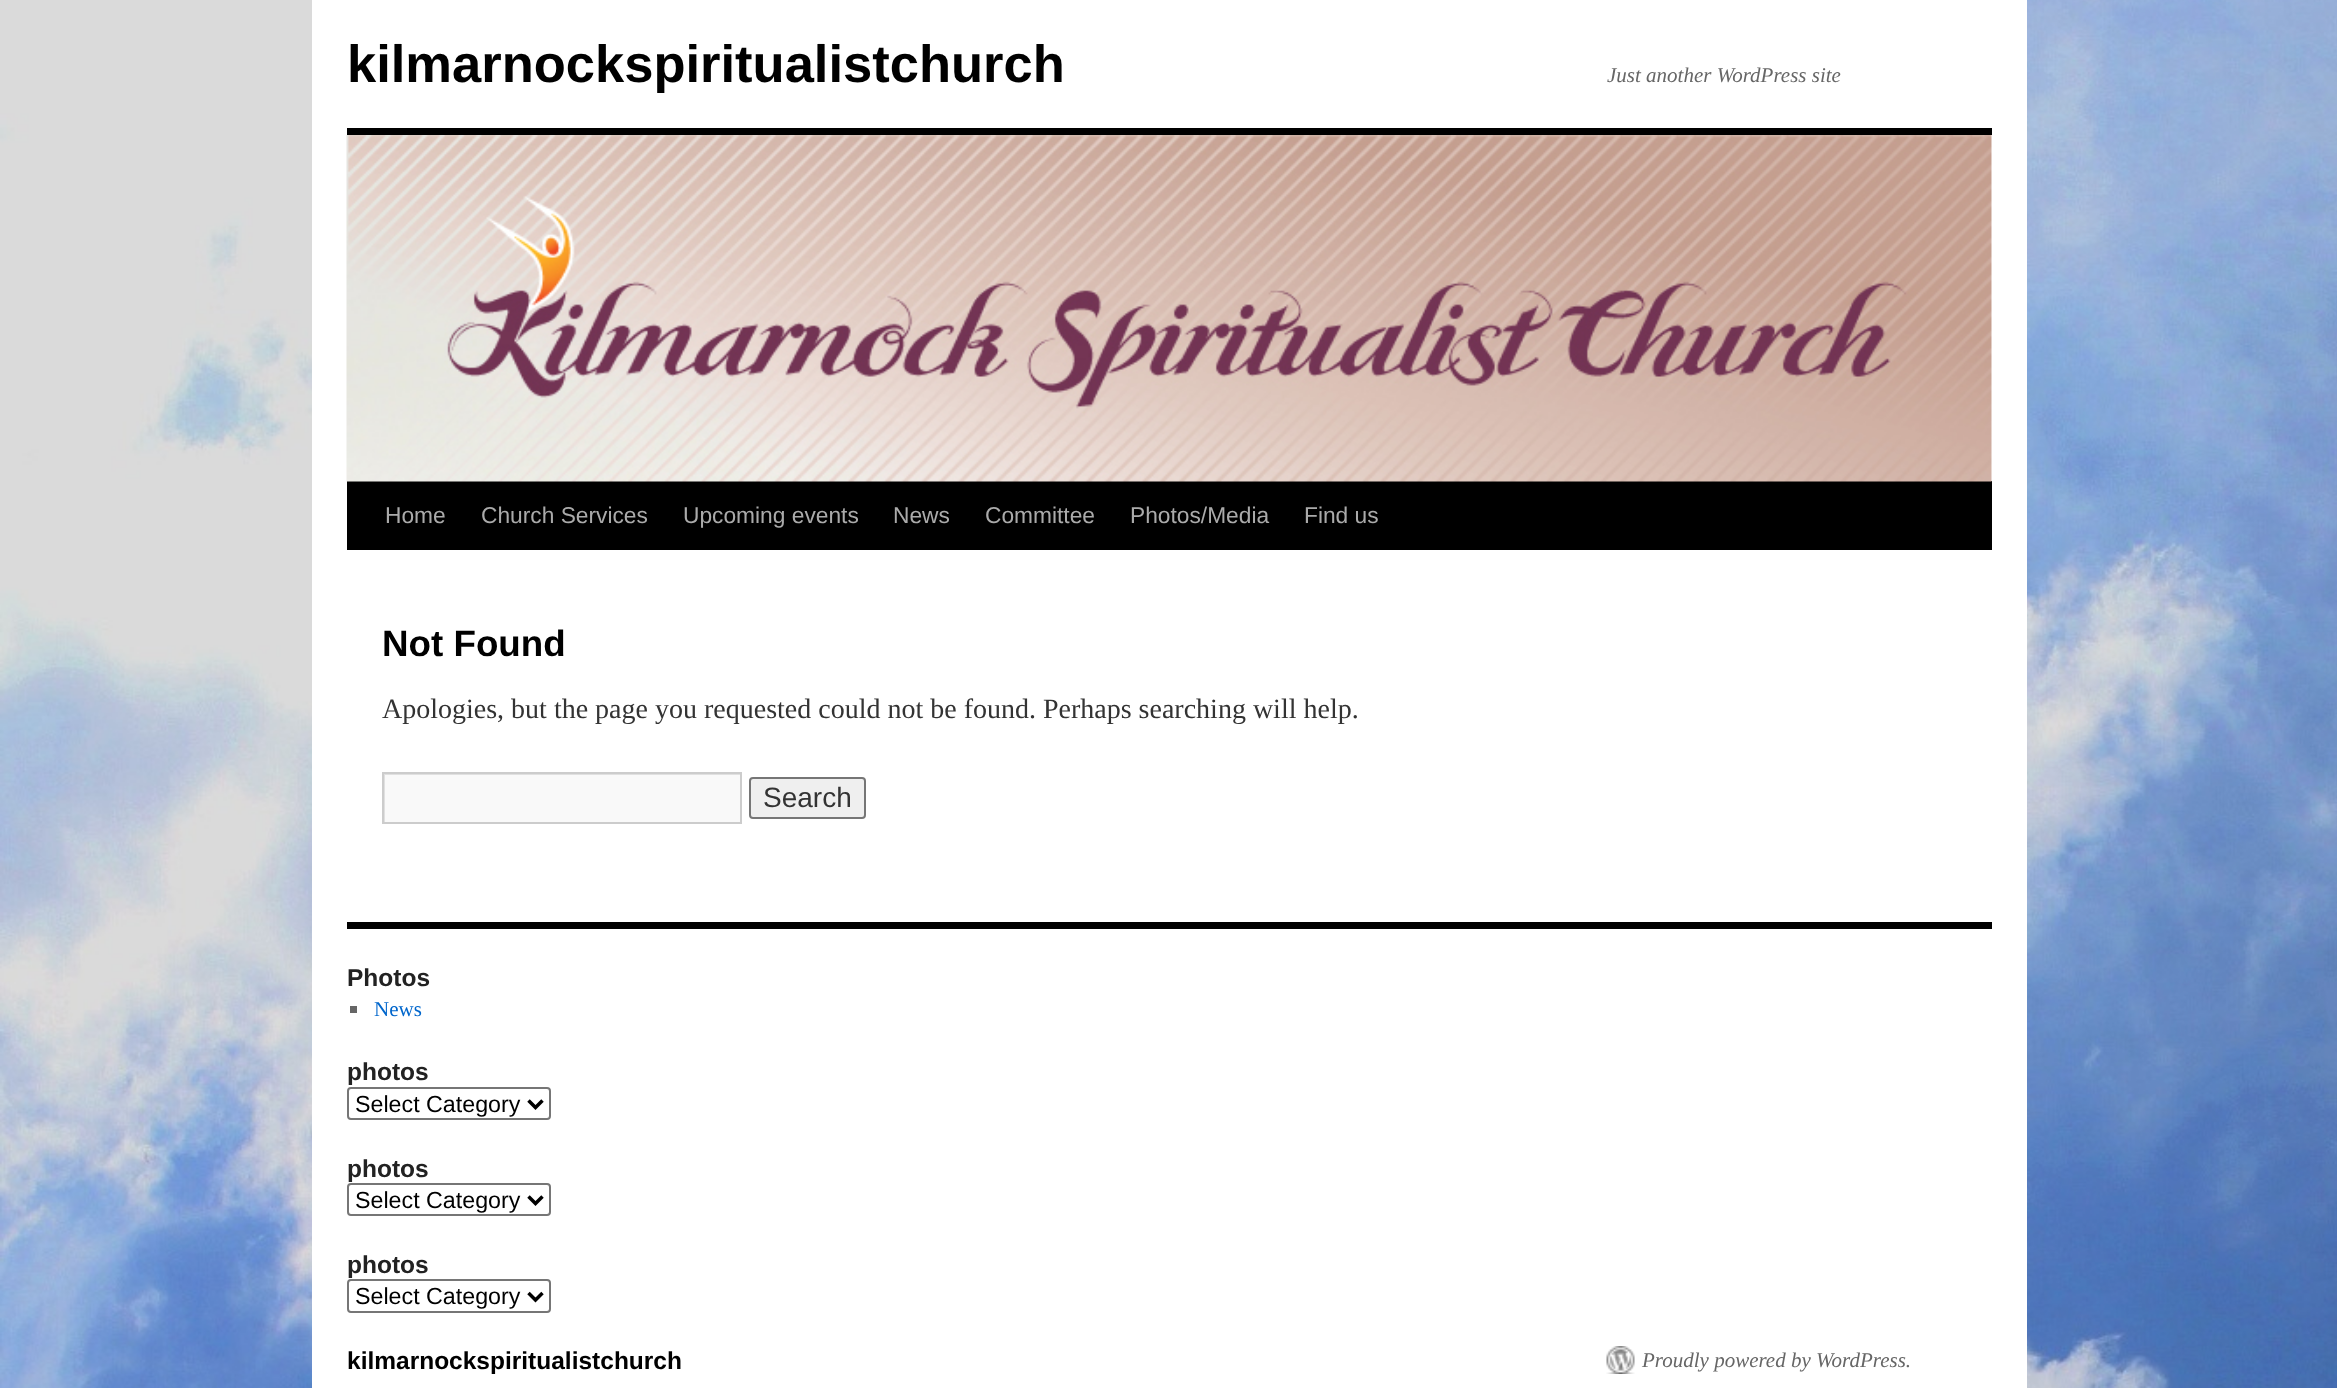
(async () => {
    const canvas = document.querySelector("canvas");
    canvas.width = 2337;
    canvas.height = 1388;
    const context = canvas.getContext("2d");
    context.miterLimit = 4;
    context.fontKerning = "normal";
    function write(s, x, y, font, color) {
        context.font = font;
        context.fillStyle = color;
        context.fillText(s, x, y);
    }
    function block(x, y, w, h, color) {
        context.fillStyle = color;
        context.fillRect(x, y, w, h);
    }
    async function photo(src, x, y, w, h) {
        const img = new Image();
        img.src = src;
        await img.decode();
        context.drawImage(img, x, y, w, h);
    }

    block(0, 0, 2337, 1388, "rgb(255, 255, 255)");
    await photo("media/1.png", 0, 0, 2337, 1388);
    block(312, 0, 1715, 1388, "rgb(255, 255, 255)");
    write("kilmarnockspiritualistchurch", 347, 82, "bold 52.5px Liberation Sans", "rgb(0, 0, 0)");
    write("Just another WordPress site", 1607, 82, "italic 21px Liberation Serif", "rgb(102, 102, 102)");
    block(347, 128, 1645, 7, "rgb(0, 0, 0)");
    block(347, 481, 1645, 69, "rgb(0, 0, 0)");
    await photo("media/2.png", 346, 135, 1646, 347);
    write("Home", 385, 523, "22.75px Liberation Sans", "rgb(170, 170, 170)");
    write("Church Services", 481, 523, "22.75px Liberation Sans", "rgb(170, 170, 170)");
    write("Upcoming events", 683, 523, "22.75px Liberation Sans", "rgb(170, 170, 170)");
    write("News", 893, 523, "22.75px Liberation Sans", "rgb(170, 170, 170)");
    write("Committee", 985, 523, "22.75px Liberation Sans", "rgb(170, 170, 170)");
    write("Photos/Media", 1130, 523, "22.75px Liberation Sans", "rgb(170, 170, 170)");
    write("Find us", 1304, 523, "22.75px Liberation Sans", "rgb(170, 170, 170)");
    write("Not Found", 382, 656, "bold 36.75px Liberation Sans", "rgb(0, 0, 0)");
    write("Apologies, but the page you requested could not be found. Perhaps searching will help.", 382, 718, "28px Liberation Serif", "rgb(51, 51, 51)");
    block(385, 775, 355, 47, "rgb(249, 249, 249)");
    context.save();
    context.beginPath();
    context.rect(383, 774, 357, 49);
    context.clip();
    context.fillStyle = "rgb(224, 224, 224)";
    context.beginPath();
    context.moveTo(210, 600);
    context.lineTo(914, 600);
    context.lineTo(914, 996);
    context.lineTo(210, 996);
    context.closePath();
    context.moveTo(385, 775);
    context.lineTo(742, 775);
    context.lineTo(742, 824);
    context.lineTo(385, 824);
    context.closePath();
    context.fill("evenodd");
    context.restore();
    context.strokeStyle = "rgb(204, 204, 204)";
    context.lineWidth = 2;
    context.strokeRect(383, 773, 358, 50);
    context.fillStyle = "rgb(239, 239, 239)";
    context.beginPath();
    context.roundRect(750, 778, 115, 40, 3);
    context.fill();
    context.strokeStyle = "rgb(118, 118, 118)";
    context.stroke();
    write("Search", 763, 807, "28px Liberation Sans", "rgb(51, 51, 51)");
    block(347, 922, 1645, 7, "rgb(0, 0, 0)");
    write("Photos", 347, 986, "bold 24.5px Liberation Sans", "rgb(34, 34, 34)");
    block(350, 1006, 7, 7, "rgb(102, 102, 102)");
    write("News", 374, 1016, "21px Liberation Serif", "rgb(0, 102, 204)");
    write("photos", 347, 1080, "bold 24.5px Liberation Sans", "rgb(34, 34, 34)");
    context.beginPath();
    context.roundRect(348, 1088, 202, 31, 3);
    context.stroke();
    context.beginPath();
    context.moveTo(528.5, 1100.5);
    context.lineTo(535.5, 1107.5);
    context.lineTo(542.5, 1100.5);
    context.strokeStyle = "rgb(0, 0, 0)";
    context.lineWidth = 3.5;
    context.stroke();
    write("Select Category", 355, 1112, "23.25px Liberation Sans", "rgb(0, 0, 0)");
    write("photos", 347, 1177, "bold 24.5px Liberation Sans", "rgb(34, 34, 34)");
    context.beginPath();
    context.roundRect(348, 1184, 202, 31, 3);
    context.strokeStyle = "rgb(118, 118, 118)";
    context.lineWidth = 2;
    context.stroke();
    context.beginPath();
    context.moveTo(528.5, 1196.5);
    context.lineTo(535.5, 1203.5);
    context.lineTo(542.5, 1196.5);
    context.strokeStyle = "rgb(0, 0, 0)";
    context.lineWidth = 3.5;
    context.stroke();
    write("Select Category", 355, 1208, "23.25px Liberation Sans", "rgb(0, 0, 0)");
    write("photos", 347, 1273, "bold 24.5px Liberation Sans", "rgb(34, 34, 34)");
    context.beginPath();
    context.roundRect(348, 1280, 202, 32, 3);
    context.strokeStyle = "rgb(118, 118, 118)";
    context.lineWidth = 2;
    context.stroke();
    context.beginPath();
    context.moveTo(528.5, 1293);
    context.lineTo(535.5, 1300);
    context.lineTo(542.5, 1293);
    context.strokeStyle = "rgb(0, 0, 0)";
    context.lineWidth = 3.5;
    context.stroke();
    write("Select Category", 355, 1304, "23.25px Liberation Sans", "rgb(0, 0, 0)");
    write("kilmarnockspiritualistchurch", 347, 1369, "bold 24.5px Liberation Sans", "rgb(0, 0, 0)");
    await photo("media/3.png", 1606, 1346, 29, 28);
    write("Proudly powered by WordPress.", 1642, 1367, "italic 21px Liberation Serif", "rgb(102, 102, 102)");
})();
